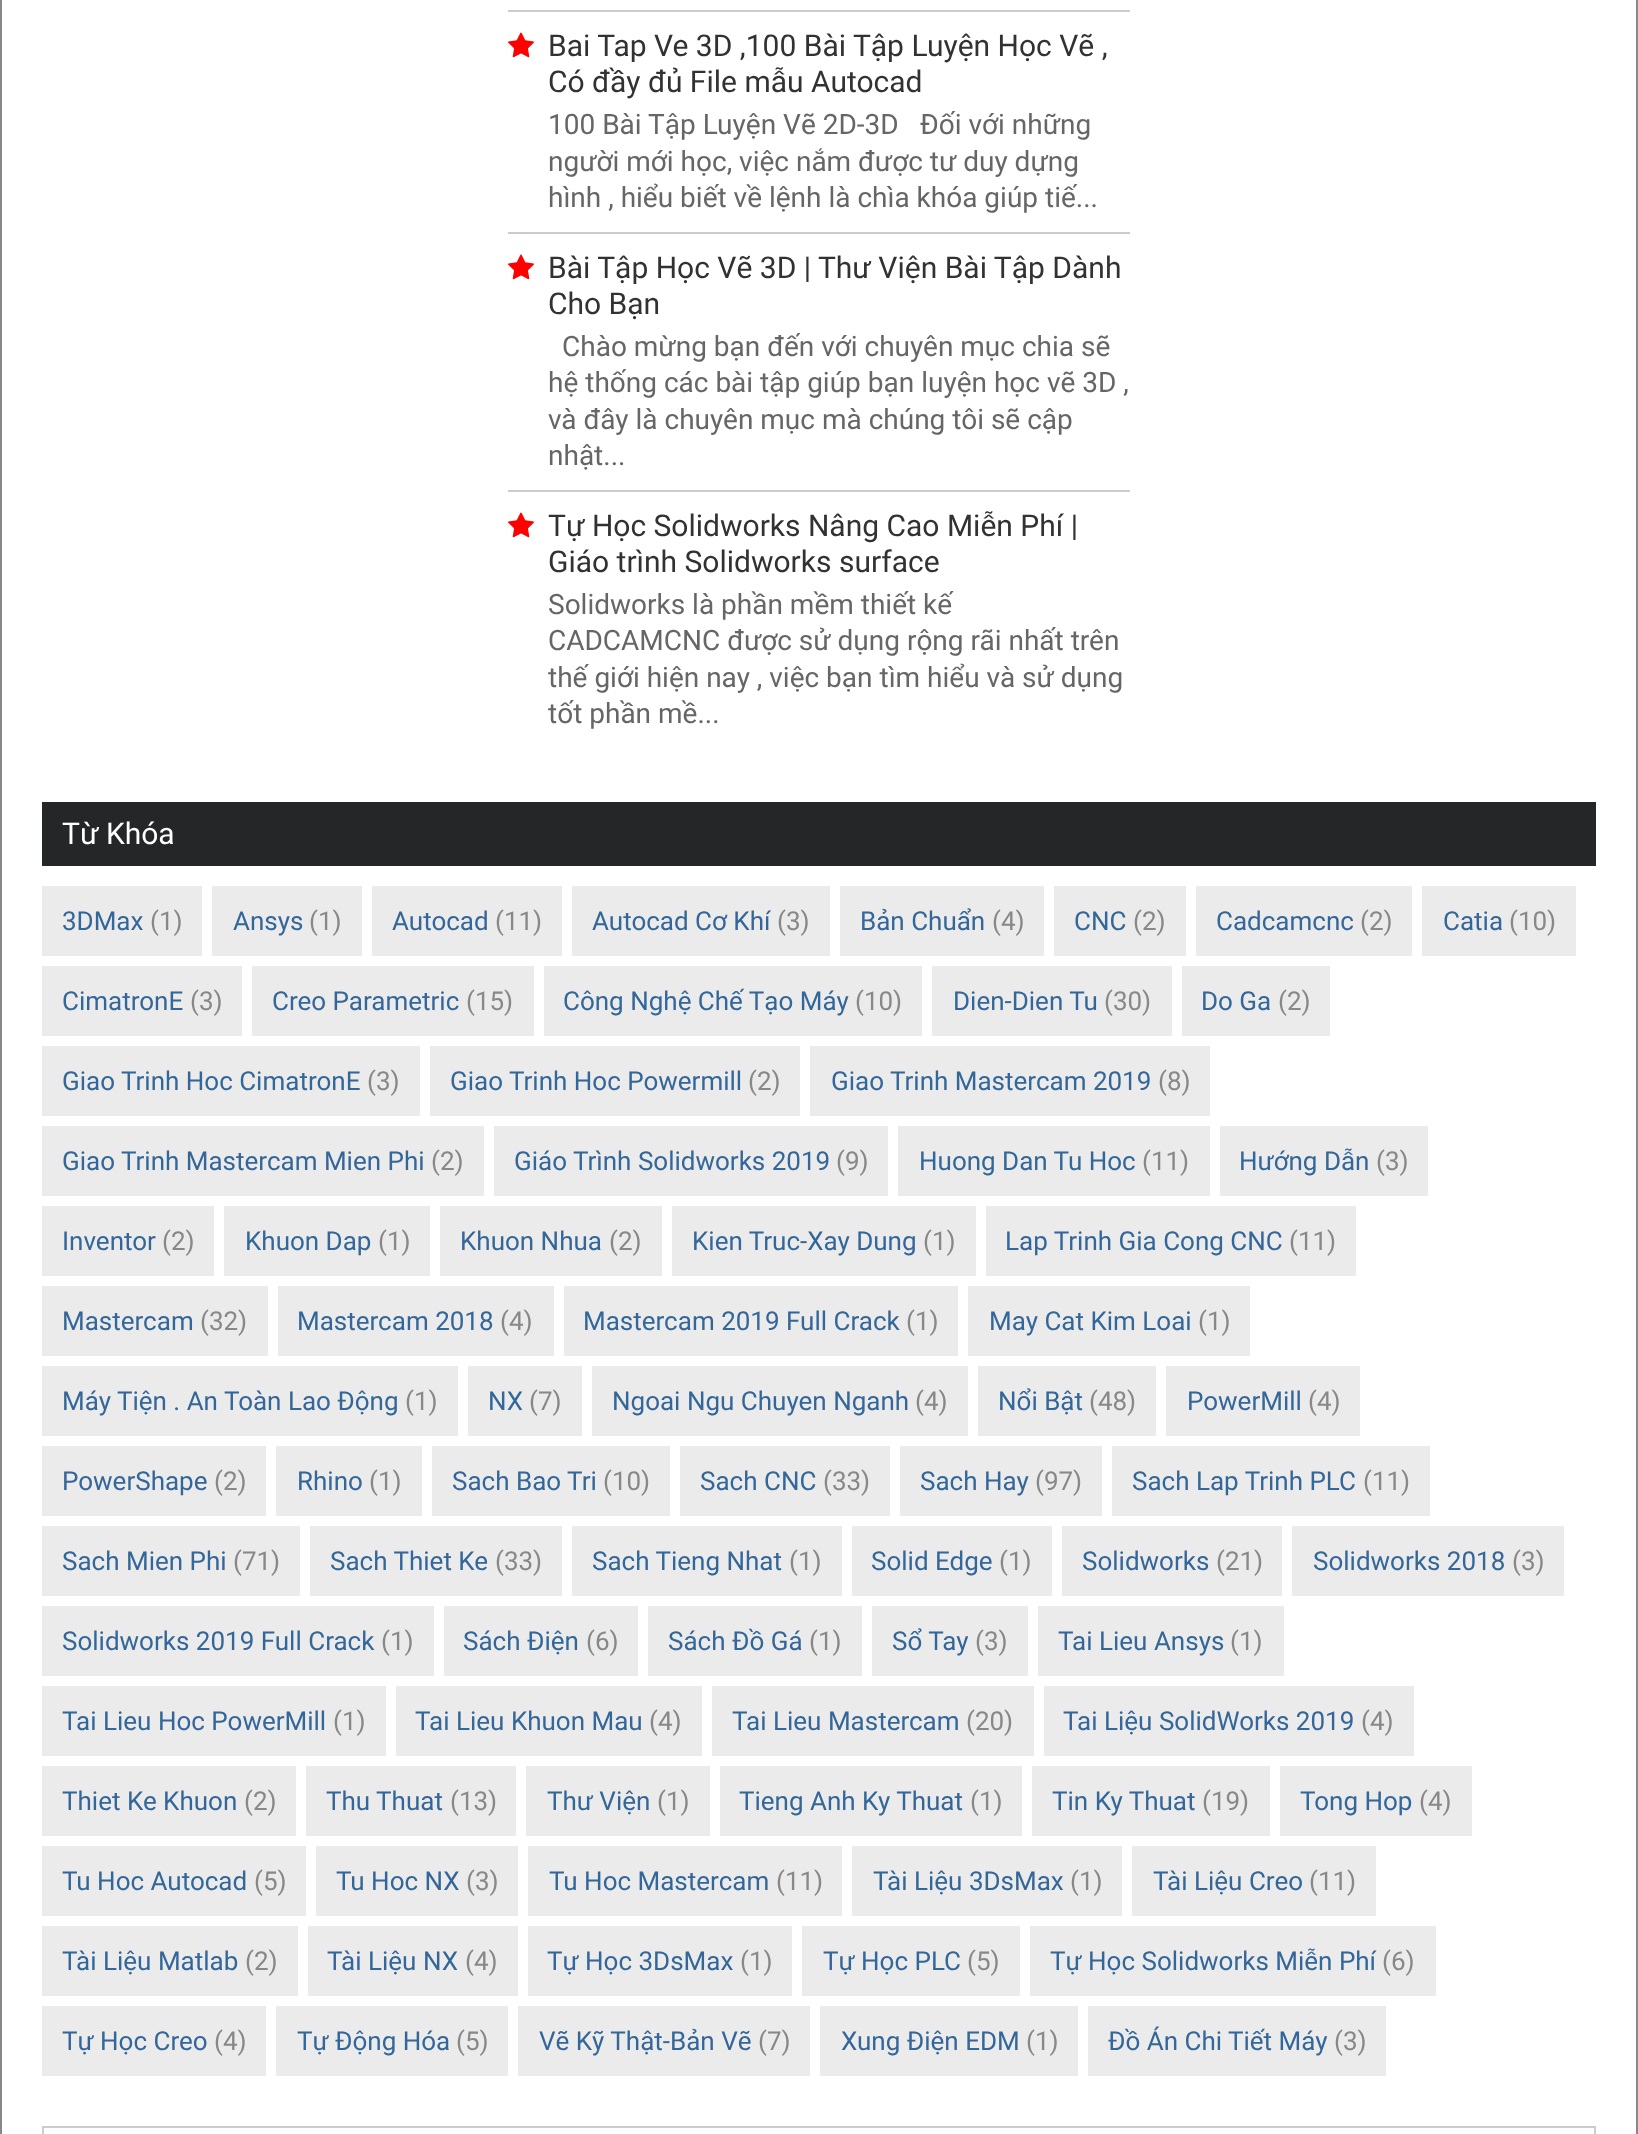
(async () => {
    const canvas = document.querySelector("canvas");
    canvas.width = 1638;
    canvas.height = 2134;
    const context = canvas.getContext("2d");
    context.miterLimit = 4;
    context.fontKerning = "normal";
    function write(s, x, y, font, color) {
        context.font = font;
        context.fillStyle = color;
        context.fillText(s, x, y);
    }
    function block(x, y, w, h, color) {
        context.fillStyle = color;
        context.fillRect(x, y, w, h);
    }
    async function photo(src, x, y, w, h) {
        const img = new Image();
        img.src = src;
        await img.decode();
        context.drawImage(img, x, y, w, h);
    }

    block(0, 0, 1638, 2134, "rgb(255, 255, 255)");
    block(1636, 0, 2, 2134, "rgb(136, 136, 136)");
    block(0, 0, 2, 2134, "rgb(136, 136, 136)");
    block(508, 10, 622, 2, "rgb(204, 204, 204)");
    await photo("media/1.png", 508, 32, 26, 26);
    write("Bai Tap Ve 3D ,100 Bài Tập Luyện Học Vẽ ,", 548, 56, "30px Roboto", "rgb(51, 50, 50)");
    write("Có đầy đủ File mẫu Autocad", 548, 92, "30px Roboto", "rgb(51, 50, 50)");
    write("100 Bài Tập Luyện Vẽ 2D-3D", 548, 134, "28px Roboto", "rgb(102, 102, 102)");
    write("Đối với những", 920, 134, "28px Roboto", "rgb(102, 102, 102)");
    write("người mới học, việc nắm được tư duy dựng", 548, 171, "28px Roboto", "rgb(102, 102, 102)");
    write("hình , hiểu biết về lệnh là chìa khóa giúp tiế...", 548, 207, "28px Roboto", "rgb(102, 102, 102)");
    block(508, 232, 622, 2, "rgb(204, 204, 204)");
    await photo("media/1.png", 508, 254, 26, 26);
    write("Bài Tập Học Vẽ 3D | Thư Viện Bài Tập Dành", 548, 278, "30px Roboto", "rgb(51, 50, 50)");
    write("Cho Bạn", 548, 314, "30px Roboto", "rgb(51, 50, 50)");
    write("Chào mừng bạn đến với chuyên mục chia sẽ", 562, 356, "28px Roboto", "rgb(102, 102, 102)");
    write("hệ thống các bài tập giúp bạn luyện học vẽ 3D ,", 548, 392, "28px Roboto", "rgb(102, 102, 102)");
    write("và đây là chuyên mục mà chúng tôi sẽ cập", 548, 429, "28px Roboto", "rgb(102, 102, 102)");
    write("nhật...", 548, 465, "28px Roboto", "rgb(102, 102, 102)");
    block(508, 490, 622, 2, "rgb(204, 204, 204)");
    await photo("media/1.png", 508, 512, 26, 26);
    write("Tự Học Solidworks Nâng Cao Miễn Phí |", 548, 536, "30px Roboto", "rgb(51, 50, 50)");
    write("Giáo trình Solidworks surface", 548, 572, "30px Roboto", "rgb(51, 50, 50)");
    write("Solidworks là phần mềm thiết kế", 548, 614, "28px Roboto", "rgb(102, 102, 102)");
    write("CADCAMCNC được sử dụng rộng rãi nhất trên", 548, 650, "28px Roboto", "rgb(102, 102, 102)");
    write("thế giới hiện nay , việc bạn tìm hiểu và sử dụng", 548, 687, "28px Roboto", "rgb(102, 102, 102)");
    write("tốt phần mề...", 548, 723, "28px Roboto", "rgb(102, 102, 102)");
    block(42, 802, 1554, 64, "rgb(36, 38, 40)");
    write("Từ Khóa", 62, 844, "30px Roboto", "rgb(255, 255, 255)");
    block(42, 886, 160, 70, "rgb(235, 235, 235)");
    write("3DMax", 62, 930, "26px Roboto", "rgb(51, 102, 153)");
    write("(1)", 150, 930, "26px Roboto", "rgb(136, 136, 136)");
    block(212, 886, 150, 70, "rgb(235, 235, 235)");
    write("Ansys", 233, 930, "26px Roboto", "rgb(51, 102, 153)");
    write("(1)", 309, 930, "26px Roboto", "rgb(136, 136, 136)");
    block(372, 886, 190, 70, "rgb(235, 235, 235)");
    write("Autocad", 392, 930, "26px Roboto", "rgb(51, 102, 153)");
    write("(11)", 495, 930, "26px Roboto", "rgb(136, 136, 136)");
    block(572, 886, 258, 70, "rgb(235, 235, 235)");
    write("Autocad Cơ Khí", 592, 930, "26px Roboto", "rgb(51, 102, 153)");
    write("(3)", 777, 930, "26px Roboto", "rgb(136, 136, 136)");
    block(840, 886, 204, 70, "rgb(235, 235, 235)");
    write("Bản Chuẩn", 860, 930, "26px Roboto", "rgb(51, 102, 153)");
    write("(4)", 992, 930, "26px Roboto", "rgb(136, 136, 136)");
    block(1054, 886, 132, 70, "rgb(235, 235, 235)");
    write("CNC", 1074, 930, "26px Roboto", "rgb(51, 102, 153)");
    write("(2)", 1133, 930, "26px Roboto", "rgb(136, 136, 136)");
    block(1196, 886, 216, 70, "rgb(235, 235, 235)");
    write("Cadcamcnc", 1216, 930, "26px Roboto", "rgb(51, 102, 153)");
    write("(2)", 1360, 930, "26px Roboto", "rgb(136, 136, 136)");
    block(1422, 886, 154, 70, "rgb(235, 235, 235)");
    write("Catia", 1443, 930, "26px Roboto", "rgb(51, 102, 153)");
    write("(10)", 1509, 930, "26px Roboto", "rgb(136, 136, 136)");
    block(42, 966, 200, 70, "rgb(235, 235, 235)");
    write("CimatronE", 62, 1010, "26px Roboto", "rgb(51, 102, 153)");
    write("(3)", 190, 1010, "26px Roboto", "rgb(136, 136, 136)");
    block(252, 966, 282, 70, "rgb(235, 235, 235)");
    write("Creo Parametric", 272, 1010, "26px Roboto", "rgb(51, 102, 153)");
    write("(15)", 466, 1010, "26px Roboto", "rgb(136, 136, 136)");
    block(544, 966, 378, 70, "rgb(235, 235, 235)");
    write("Công Nghệ Chế Tạo Máy", 563, 1010, "26px Roboto", "rgb(51, 102, 153)");
    write("(10)", 855, 1010, "26px Roboto", "rgb(136, 136, 136)");
    block(932, 966, 240, 70, "rgb(235, 235, 235)");
    write("Dien-Dien Tu", 953, 1010, "26px Roboto", "rgb(51, 102, 153)");
    write("(30)", 1104, 1010, "26px Roboto", "rgb(136, 136, 136)");
    block(1182, 966, 148, 70, "rgb(235, 235, 235)");
    write("Do Ga", 1201, 1010, "26px Roboto", "rgb(51, 102, 153)");
    write("(2)", 1278, 1010, "26px Roboto", "rgb(136, 136, 136)");
    block(42, 1046, 378, 70, "rgb(235, 235, 235)");
    write("Giao Trinh Hoc CimatronE", 62, 1090, "26px Roboto", "rgb(51, 102, 153)");
    write("(3)", 367, 1090, "26px Roboto", "rgb(136, 136, 136)");
    block(430, 1046, 370, 70, "rgb(235, 235, 235)");
    write("Giao Trinh Hoc Powermill", 450, 1090, "26px Roboto", "rgb(51, 102, 153)");
    write("(2)", 748, 1090, "26px Roboto", "rgb(136, 136, 136)");
    block(810, 1046, 400, 70, "rgb(235, 235, 235)");
    write("Giao Trinh Mastercam 2019", 831, 1090, "26px Roboto", "rgb(51, 102, 153)");
    write("(8)", 1158, 1090, "26px Roboto", "rgb(136, 136, 136)");
    block(42, 1126, 442, 70, "rgb(235, 235, 235)");
    write("Giao Trinh Mastercam Mien Phi", 62, 1170, "26px Roboto", "rgb(51, 102, 153)");
    write("(2)", 431, 1170, "26px Roboto", "rgb(136, 136, 136)");
    block(494, 1126, 394, 70, "rgb(235, 235, 235)");
    write("Giáo Trình Solidworks 2019", 514, 1170, "26px Roboto", "rgb(51, 102, 153)");
    write("(9)", 836, 1170, "26px Roboto", "rgb(136, 136, 136)");
    block(898, 1126, 312, 70, "rgb(235, 235, 235)");
    write("Huong Dan Tu Hoc", 919, 1170, "26px Roboto", "rgb(51, 102, 153)");
    write("(11)", 1142, 1170, "26px Roboto", "rgb(136, 136, 136)");
    block(1220, 1126, 208, 70, "rgb(235, 235, 235)");
    write("Hướng Dẫn", 1239, 1170, "26px Roboto", "rgb(51, 102, 153)");
    write("(3)", 1376, 1170, "26px Roboto", "rgb(136, 136, 136)");
    block(42, 1206, 172, 70, "rgb(235, 235, 235)");
    write("Inventor", 62, 1250, "26px Roboto", "rgb(51, 102, 153)");
    write("(2)", 162, 1250, "26px Roboto", "rgb(136, 136, 136)");
    block(224, 1206, 206, 70, "rgb(235, 235, 235)");
    write("Khuon Dap", 245, 1250, "26px Roboto", "rgb(51, 102, 153)");
    write("(1)", 378, 1250, "26px Roboto", "rgb(136, 136, 136)");
    block(440, 1206, 222, 70, "rgb(235, 235, 235)");
    write("Khuon Nhua", 460, 1250, "26px Roboto", "rgb(51, 102, 153)");
    write("(2)", 609, 1250, "26px Roboto", "rgb(136, 136, 136)");
    block(672, 1206, 304, 70, "rgb(235, 235, 235)");
    write("Kien Truc-Xay Dung", 692, 1250, "26px Roboto", "rgb(51, 102, 153)");
    write("(1)", 923, 1250, "26px Roboto", "rgb(136, 136, 136)");
    block(986, 1206, 370, 70, "rgb(235, 235, 235)");
    write("Lap Trinh Gia Cong CNC", 1005, 1250, "26px Roboto", "rgb(51, 102, 153)");
    write("(11)", 1289, 1250, "26px Roboto", "rgb(136, 136, 136)");
    block(42, 1286, 226, 70, "rgb(235, 235, 235)");
    write("Mastercam", 62, 1330, "26px Roboto", "rgb(51, 102, 153)");
    write("(32)", 200, 1330, "26px Roboto", "rgb(136, 136, 136)");
    block(278, 1286, 276, 70, "rgb(235, 235, 235)");
    write("Mastercam 2018", 297, 1330, "26px Roboto", "rgb(51, 102, 153)");
    write("(4)", 500, 1330, "26px Roboto", "rgb(136, 136, 136)");
    block(564, 1286, 394, 70, "rgb(235, 235, 235)");
    write("Mastercam 2019 Full Crack", 583, 1330, "26px Roboto", "rgb(51, 102, 153)");
    write("(1)", 906, 1330, "26px Roboto", "rgb(136, 136, 136)");
    block(968, 1286, 282, 70, "rgb(235, 235, 235)");
    write("May Cat Kim Loai", 989, 1330, "26px Roboto", "rgb(51, 102, 153)");
    write("(1)", 1198, 1330, "26px Roboto", "rgb(136, 136, 136)");
    block(42, 1366, 416, 70, "rgb(235, 235, 235)");
    write("Máy Tiện . An Toàn Lao Động", 62, 1410, "26px Roboto", "rgb(51, 102, 153)");
    write("(1)", 405, 1410, "26px Roboto", "rgb(136, 136, 136)");
    block(468, 1366, 114, 70, "rgb(235, 235, 235)");
    write("NX", 488, 1410, "26px Roboto", "rgb(51, 102, 153)");
    write("(7)", 529, 1410, "26px Roboto", "rgb(136, 136, 136)");
    block(592, 1366, 376, 70, "rgb(235, 235, 235)");
    write("Ngoai Ngu Chuyen Nganh", 612, 1410, "26px Roboto", "rgb(51, 102, 153)");
    write("(4)", 915, 1410, "26px Roboto", "rgb(136, 136, 136)");
    block(978, 1366, 178, 70, "rgb(235, 235, 235)");
    write("Nổi Bật", 998, 1410, "26px Roboto", "rgb(51, 102, 153)");
    write("(48)", 1089, 1410, "26px Roboto", "rgb(136, 136, 136)");
    block(1166, 1366, 194, 70, "rgb(235, 235, 235)");
    write("PowerMill", 1187, 1410, "26px Roboto", "rgb(51, 102, 153)");
    write("(4)", 1308, 1410, "26px Roboto", "rgb(136, 136, 136)");
    block(42, 1446, 224, 70, "rgb(235, 235, 235)");
    write("PowerShape", 62, 1490, "26px Roboto", "rgb(51, 102, 153)");
    write("(2)", 214, 1490, "26px Roboto", "rgb(136, 136, 136)");
    block(276, 1446, 146, 70, "rgb(235, 235, 235)");
    write("Rhino", 297, 1490, "26px Roboto", "rgb(51, 102, 153)");
    write("(1)", 369, 1490, "26px Roboto", "rgb(136, 136, 136)");
    block(432, 1446, 238, 70, "rgb(235, 235, 235)");
    write("Sach Bao Tri", 452, 1490, "26px Roboto", "rgb(51, 102, 153)");
    write("(10)", 603, 1490, "26px Roboto", "rgb(136, 136, 136)");
    block(680, 1446, 210, 70, "rgb(235, 235, 235)");
    write("Sach CNC", 700, 1490, "26px Roboto", "rgb(51, 102, 153)");
    write("(33)", 823, 1490, "26px Roboto", "rgb(136, 136, 136)");
    block(900, 1446, 202, 70, "rgb(235, 235, 235)");
    write("Sach Hay", 920, 1490, "26px Roboto", "rgb(51, 102, 153)");
    write("(97)", 1035, 1490, "26px Roboto", "rgb(136, 136, 136)");
    block(1112, 1446, 318, 70, "rgb(235, 235, 235)");
    write("Sach Lap Trinh PLC", 1132, 1490, "26px Roboto", "rgb(51, 102, 153)");
    write("(11)", 1363, 1490, "26px Roboto", "rgb(136, 136, 136)");
    block(42, 1526, 258, 70, "rgb(235, 235, 235)");
    write("Sach Mien Phi", 62, 1570, "26px Roboto", "rgb(51, 102, 153)");
    write("(71)", 233, 1570, "26px Roboto", "rgb(136, 136, 136)");
    block(310, 1526, 252, 70, "rgb(235, 235, 235)");
    write("Sach Thiet Ke", 330, 1570, "26px Roboto", "rgb(51, 102, 153)");
    write("(33)", 495, 1570, "26px Roboto", "rgb(136, 136, 136)");
    block(572, 1526, 270, 70, "rgb(235, 235, 235)");
    write("Sach Tieng Nhat", 592, 1570, "26px Roboto", "rgb(51, 102, 153)");
    write("(1)", 789, 1570, "26px Roboto", "rgb(136, 136, 136)");
    block(852, 1526, 200, 70, "rgb(235, 235, 235)");
    write("Solid Edge", 871, 1570, "26px Roboto", "rgb(51, 102, 153)");
    write("(1)", 999, 1570, "26px Roboto", "rgb(136, 136, 136)");
    block(1062, 1526, 220, 70, "rgb(235, 235, 235)");
    write("Solidworks", 1082, 1570, "26px Roboto", "rgb(51, 102, 153)");
    write("(21)", 1216, 1570, "26px Roboto", "rgb(136, 136, 136)");
    block(1292, 1526, 272, 70, "rgb(235, 235, 235)");
    write("Solidworks 2018", 1313, 1570, "26px Roboto", "rgb(51, 102, 153)");
    write("(3)", 1512, 1570, "26px Roboto", "rgb(136, 136, 136)");
    block(42, 1606, 392, 70, "rgb(235, 235, 235)");
    write("Solidworks 2019 Full Crack", 62, 1650, "26px Roboto", "rgb(51, 102, 153)");
    write("(1)", 381, 1650, "26px Roboto", "rgb(136, 136, 136)");
    block(444, 1606, 194, 70, "rgb(235, 235, 235)");
    write("Sách Điện", 463, 1650, "26px Roboto", "rgb(51, 102, 153)");
    write("(6)", 586, 1650, "26px Roboto", "rgb(136, 136, 136)");
    block(648, 1606, 214, 70, "rgb(235, 235, 235)");
    write("Sách Đồ Gá", 668, 1650, "26px Roboto", "rgb(51, 102, 153)");
    write("(1)", 809, 1650, "26px Roboto", "rgb(136, 136, 136)");
    block(872, 1606, 156, 70, "rgb(235, 235, 235)");
    write("Sổ Tay", 892, 1650, "26px Roboto", "rgb(51, 102, 153)");
    write("(3)", 975, 1650, "26px Roboto", "rgb(136, 136, 136)");
    block(1038, 1606, 246, 70, "rgb(235, 235, 235)");
    write("Tai Lieu Ansys", 1058, 1650, "26px Roboto", "rgb(51, 102, 153)");
    write("(1)", 1230, 1650, "26px Roboto", "rgb(136, 136, 136)");
    block(42, 1686, 344, 70, "rgb(235, 235, 235)");
    write("Tai Lieu Hoc PowerMill", 62, 1730, "26px Roboto", "rgb(51, 102, 153)");
    write("(1)", 333, 1730, "26px Roboto", "rgb(136, 136, 136)");
    block(396, 1686, 306, 70, "rgb(235, 235, 235)");
    write("Tai Lieu Khuon Mau", 415, 1730, "26px Roboto", "rgb(51, 102, 153)");
    write("(4)", 649, 1730, "26px Roboto", "rgb(136, 136, 136)");
    block(712, 1686, 322, 70, "rgb(235, 235, 235)");
    write("Tai Lieu Mastercam", 732, 1730, "26px Roboto", "rgb(51, 102, 153)");
    write("(20)", 966, 1730, "26px Roboto", "rgb(136, 136, 136)");
    block(1044, 1686, 370, 70, "rgb(235, 235, 235)");
    write("Tai Liệu SolidWorks 2019", 1063, 1730, "26px Roboto", "rgb(51, 102, 153)");
    write("(4)", 1361, 1730, "26px Roboto", "rgb(136, 136, 136)");
    block(42, 1766, 254, 70, "rgb(235, 235, 235)");
    write("Thiet Ke Khuon", 62, 1810, "26px Roboto", "rgb(51, 102, 153)");
    write("(2)", 244, 1810, "26px Roboto", "rgb(136, 136, 136)");
    block(306, 1766, 210, 70, "rgb(235, 235, 235)");
    write("Thu Thuat", 326, 1810, "26px Roboto", "rgb(51, 102, 153)");
    write("(13)", 450, 1810, "26px Roboto", "rgb(136, 136, 136)");
    block(526, 1766, 184, 70, "rgb(235, 235, 235)");
    write("Thư Viện", 547, 1810, "26px Roboto", "rgb(51, 102, 153)");
    write("(1)", 657, 1810, "26px Roboto", "rgb(136, 136, 136)");
    block(720, 1766, 302, 70, "rgb(235, 235, 235)");
    write("Tieng Anh Ky Thuat", 739, 1810, "26px Roboto", "rgb(51, 102, 153)");
    write("(1)", 970, 1810, "26px Roboto", "rgb(136, 136, 136)");
    block(1032, 1766, 238, 70, "rgb(235, 235, 235)");
    write("Tin Ky Thuat", 1052, 1810, "26px Roboto", "rgb(51, 102, 153)");
    write("(19)", 1202, 1810, "26px Roboto", "rgb(136, 136, 136)");
    block(1280, 1766, 192, 70, "rgb(235, 235, 235)");
    write("Tong Hop", 1300, 1810, "26px Roboto", "rgb(51, 102, 153)");
    write("(4)", 1419, 1810, "26px Roboto", "rgb(136, 136, 136)");
    block(42, 1846, 264, 70, "rgb(235, 235, 235)");
    write("Tu Hoc Autocad", 62, 1890, "26px Roboto", "rgb(51, 102, 153)");
    write("(5)", 254, 1890, "26px Roboto", "rgb(136, 136, 136)");
    block(316, 1846, 202, 70, "rgb(235, 235, 235)");
    write("Tu Hoc NX", 336, 1890, "26px Roboto", "rgb(51, 102, 153)");
    write("(3)", 466, 1890, "26px Roboto", "rgb(136, 136, 136)");
    block(528, 1846, 314, 70, "rgb(235, 235, 235)");
    write("Tu Hoc Mastercam", 549, 1890, "26px Roboto", "rgb(51, 102, 153)");
    write("(11)", 776, 1890, "26px Roboto", "rgb(136, 136, 136)");
    block(852, 1846, 270, 70, "rgb(235, 235, 235)");
    write("Tài Liệu 3DsMax", 873, 1890, "26px Roboto", "rgb(51, 102, 153)");
    write("(1)", 1070, 1890, "26px Roboto", "rgb(136, 136, 136)");
    block(1132, 1846, 244, 70, "rgb(235, 235, 235)");
    write("Tài Liệu Creo", 1153, 1890, "26px Roboto", "rgb(51, 102, 153)");
    write("(11)", 1309, 1890, "26px Roboto", "rgb(136, 136, 136)");
    block(42, 1926, 256, 70, "rgb(235, 235, 235)");
    write("Tài Liệu Matlab", 62, 1970, "26px Roboto", "rgb(51, 102, 153)");
    write("(2)", 245, 1970, "26px Roboto", "rgb(136, 136, 136)");
    block(308, 1926, 210, 70, "rgb(235, 235, 235)");
    write("Tài Liệu NX", 327, 1970, "26px Roboto", "rgb(51, 102, 153)");
    write("(4)", 465, 1970, "26px Roboto", "rgb(136, 136, 136)");
    block(528, 1926, 264, 70, "rgb(235, 235, 235)");
    write("Tự Học 3DsMax", 547, 1970, "26px Roboto", "rgb(51, 102, 153)");
    write("(1)", 740, 1970, "26px Roboto", "rgb(136, 136, 136)");
    block(802, 1926, 218, 70, "rgb(235, 235, 235)");
    write("Tự Học PLC", 823, 1970, "26px Roboto", "rgb(51, 102, 153)");
    write("(5)", 967, 1970, "26px Roboto", "rgb(136, 136, 136)");
    block(1030, 1926, 406, 70, "rgb(235, 235, 235)");
    write("Tự Học Solidworks Miễn Phí", 1050, 1970, "26px Roboto", "rgb(51, 102, 153)");
    write("(6)", 1382, 1970, "26px Roboto", "rgb(136, 136, 136)");
    block(42, 2006, 224, 70, "rgb(235, 235, 235)");
    write("Tự Học Creo", 62, 2050, "26px Roboto", "rgb(51, 102, 153)");
    write("(4)", 214, 2050, "26px Roboto", "rgb(136, 136, 136)");
    block(276, 2006, 232, 70, "rgb(235, 235, 235)");
    write("Tự Động Hóa", 297, 2050, "26px Roboto", "rgb(51, 102, 153)");
    write("(5)", 456, 2050, "26px Roboto", "rgb(136, 136, 136)");
    block(518, 2006, 292, 70, "rgb(235, 235, 235)");
    write("Vẽ Kỹ Thật-Bản Vẽ", 539, 2050, "26px Roboto", "rgb(51, 102, 153)");
    write("(7)", 758, 2050, "26px Roboto", "rgb(136, 136, 136)");
    block(820, 2006, 258, 70, "rgb(235, 235, 235)");
    write("Xung Điện EDM", 841, 2050, "26px Roboto", "rgb(51, 102, 153)");
    write("(1)", 1026, 2050, "26px Roboto", "rgb(136, 136, 136)");
    block(1088, 2006, 298, 70, "rgb(235, 235, 235)");
    write("Đồ Án Chi Tiết Máy", 1108, 2050, "26px Roboto", "rgb(51, 102, 153)");
    write("(3)", 1334, 2050, "26px Roboto", "rgb(136, 136, 136)");
    context.strokeStyle = "rgb(204, 204, 204)";
    context.lineWidth = 2;
    context.strokeRect(43, 2127, 1552, 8);
})();
